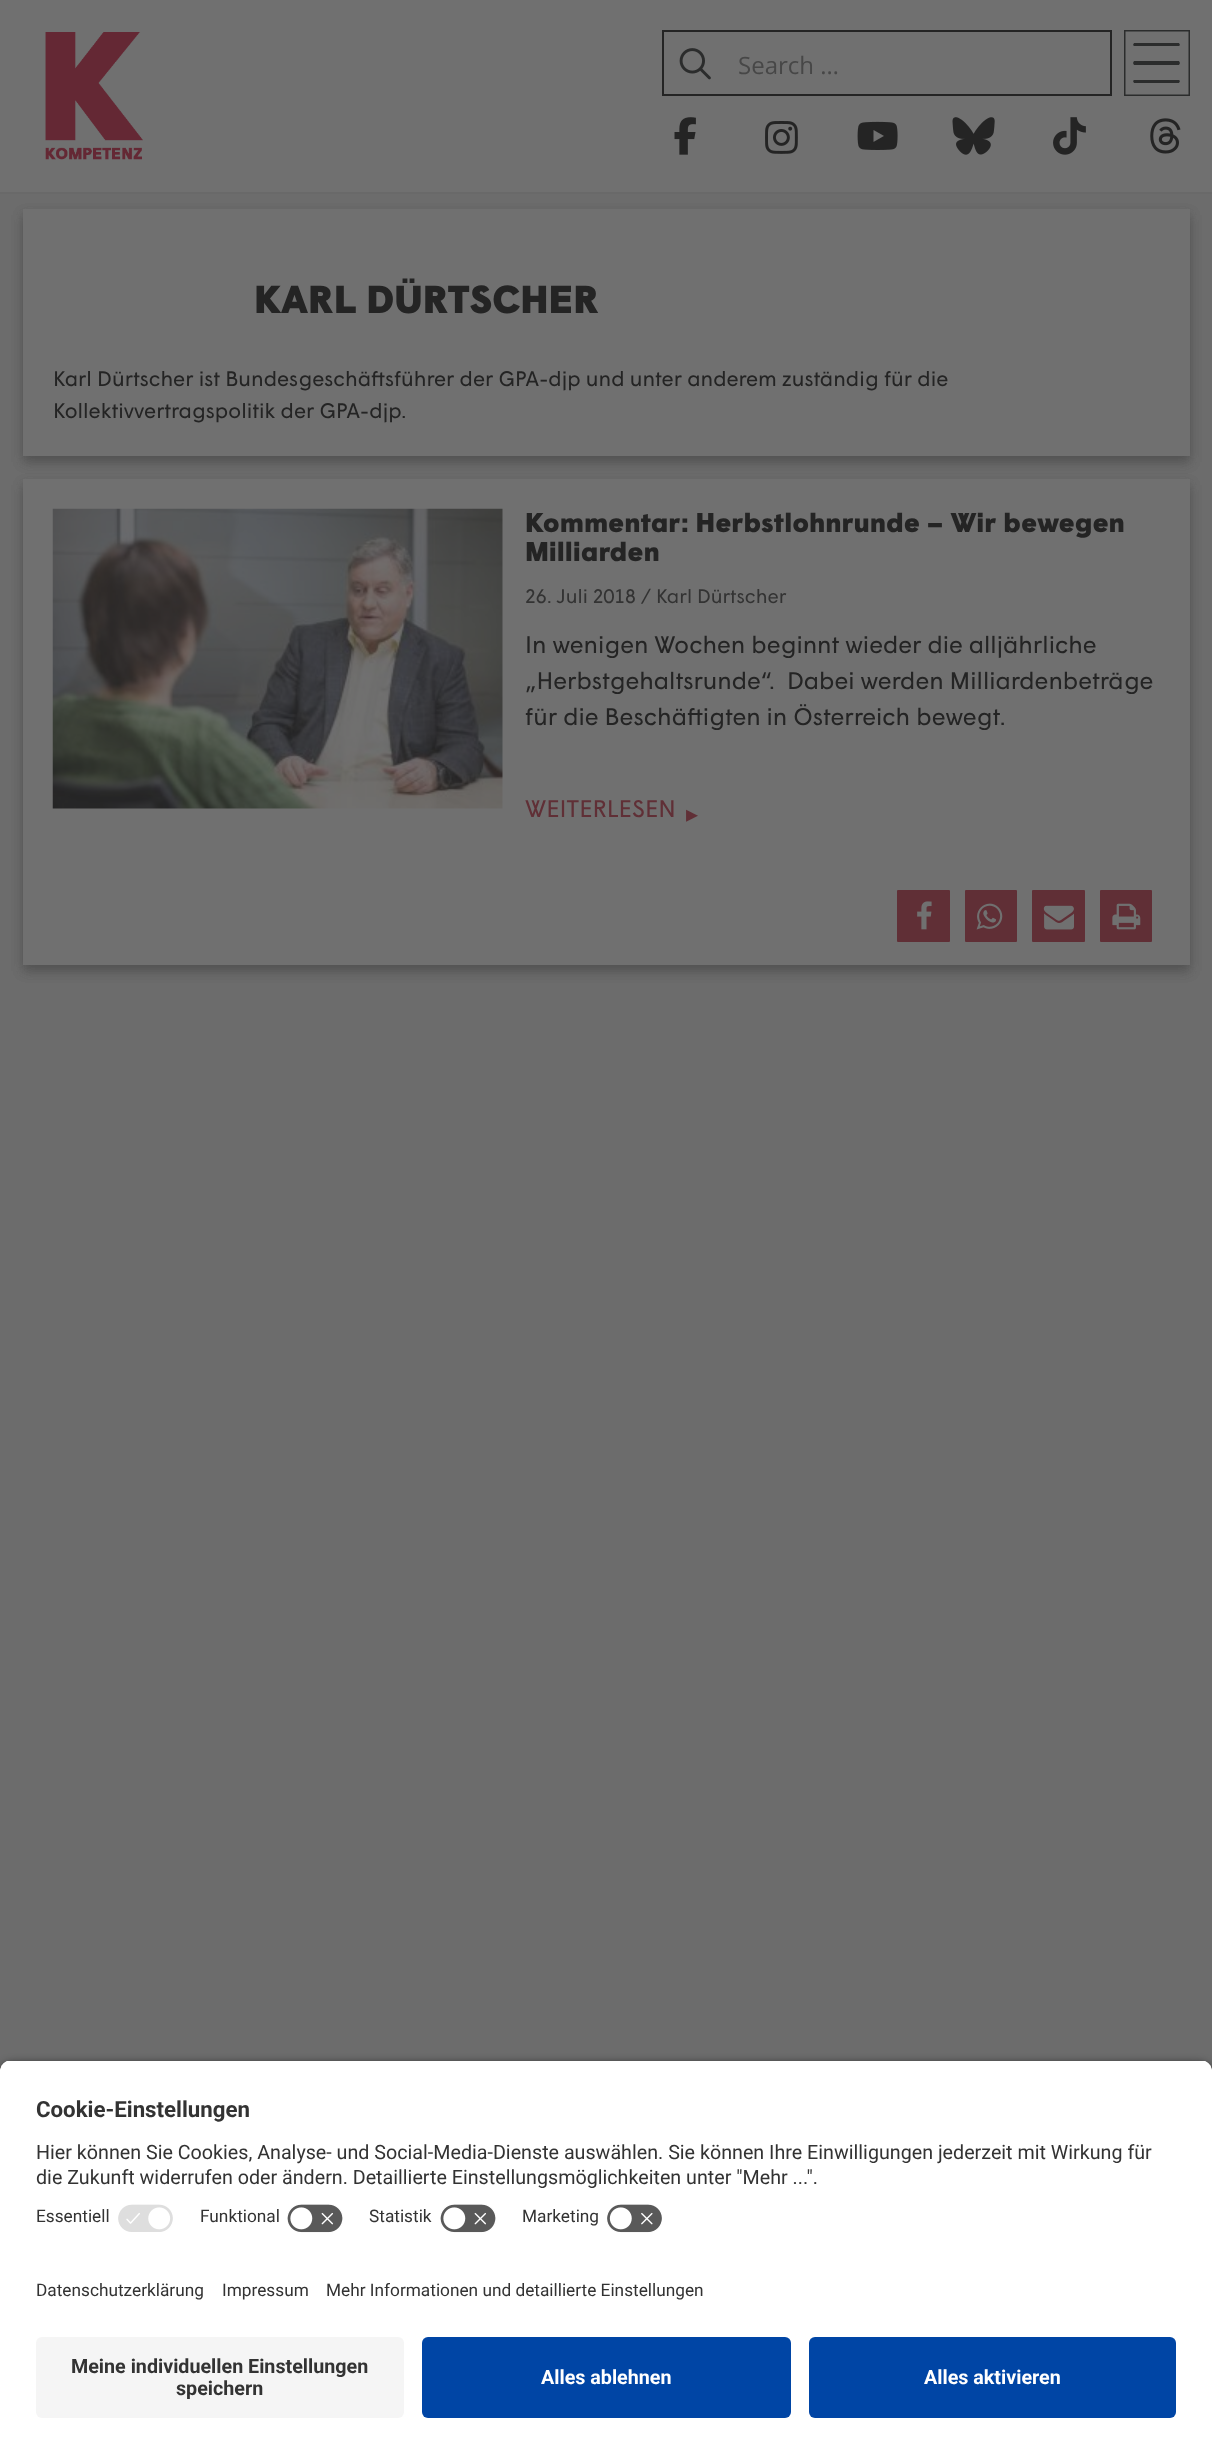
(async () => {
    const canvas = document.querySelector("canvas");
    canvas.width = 1212;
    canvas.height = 2454;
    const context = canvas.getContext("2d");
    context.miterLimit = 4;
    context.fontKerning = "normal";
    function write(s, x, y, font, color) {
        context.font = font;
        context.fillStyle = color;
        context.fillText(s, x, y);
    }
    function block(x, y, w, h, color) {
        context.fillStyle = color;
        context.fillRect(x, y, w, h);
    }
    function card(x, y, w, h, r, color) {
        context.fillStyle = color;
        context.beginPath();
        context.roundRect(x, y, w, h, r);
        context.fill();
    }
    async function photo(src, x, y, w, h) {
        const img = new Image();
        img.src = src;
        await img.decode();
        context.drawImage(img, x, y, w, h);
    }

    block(0, 0, 1212, 2454, "rgb(108, 108, 108)");
    block(0, 0, 1212, 192, "rgb(112, 112, 112)");
    block(0, 192, 1212, 2, "rgb(105, 105, 105)");
    await photo("media/1.png", 45, 32, 98, 128);
    context.strokeStyle = "rgb(36, 36, 36)";
    context.lineWidth = 2;
    context.strokeRect(663, 31, 448, 64);
    await photo("media/2.png", 679, 48, 32, 32);
    write("Search …", 738, 74, "24px Open Sans", "rgb(71, 71, 71)");
    context.strokeStyle = "rgb(43, 44, 44)";
    context.lineWidth = 1.5;
    context.strokeRect(1124.75, 30.75, 64.5, 64.5);
    context.fillStyle = "rgb(43, 44, 44)";
    context.beginPath();
    context.moveTo(1133, 45);
    context.lineTo(1134, 43);
    context.lineTo(1179, 43);
    context.lineTo(1180, 45);
    context.lineTo(1179, 46);
    context.lineTo(1134, 46);
    context.closePath();
    context.moveTo(1133, 63);
    context.lineTo(1134, 61);
    context.lineTo(1179, 61);
    context.lineTo(1180, 63);
    context.lineTo(1179, 65);
    context.lineTo(1134, 65);
    context.closePath();
    context.moveTo(1180, 81);
    context.lineTo(1179, 83);
    context.lineTo(1134, 83);
    context.lineTo(1133, 81);
    context.lineTo(1134, 80);
    context.lineTo(1179, 80);
    context.closePath();
    context.fill();
    await photo("media/3.png", 674, 117, 22, 38);
    await photo("media/4.png", 765, 121, 33, 33);
    await photo("media/5.png", 857, 121, 41, 29);
    await photo("media/6.png", 952, 117, 43, 38);
    await photo("media/7.png", 1053, 117, 33, 38);
    await photo("media/8.png", 1150, 118, 31, 36);
    context.fillStyle = "rgba(36, 36, 36, 0.2)";
    context.filter = "blur(6px)";
    context.beginPath();
    context.rect(23, 215, 1167, 247);
    context.fill();
    context.filter = "none";
    context.filter = "blur(6px)";
    context.beginPath();
    context.rect(23, 215, 1167, 247);
    context.fill();
    context.filter = "none";
    block(23, 209, 1167, 247, "rgb(112, 112, 112)");
    write("KARL DÜRTSCHER", 254, 313, "900 39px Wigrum", "rgb(36, 36, 36)");
    write("Karl Dürtscher ist Bundesgeschäftsführer der GPA-djp und unter anderem zuständig für die", 53, 386, "21px Wigrum", "rgb(36, 36, 36)");
    write("Kollektivvertragspolitik der GPA-djp.", 53, 418, "21px Wigrum", "rgb(36, 36, 36)");
    context.fillStyle = "rgba(36, 36, 36, 0.2)";
    context.filter = "blur(6px)";
    context.beginPath();
    context.rect(23, 485, 1167, 486);
    context.fill();
    context.filter = "none";
    context.filter = "blur(6px)";
    context.beginPath();
    context.rect(23, 485, 1167, 486);
    context.fill();
    context.filter = "none";
    block(23, 479, 1167, 486, "rgb(112, 112, 112)");
    await photo("media/9.png", 52, 508, 451, 301);
    write("Kommentar: Herbstlohnrunde – Wir bewegen", 525, 532, "900 27px Wigrum", "rgb(36, 36, 36)");
    write("Milliarden", 525, 561, "900 27px Wigrum", "rgb(36, 36, 36)");
    write("26. Juli 2018 / Karl Dürtscher", 525, 603, "19.5px Wigrum", "rgb(51, 51, 51)");
    write("In wenigen Wochen beginnt wieder die alljährliche", 525, 653, "24px Wigrum", "rgb(36, 36, 36)");
    write("„Herbstgehaltsrunde“.  Dabei werden Milliardenbeträge", 525, 689, "24px Wigrum", "rgb(36, 36, 36)");
    write("für die Beschäftigten in Österreich bewegt.", 525, 725, "24px Wigrum", "rgb(36, 36, 36)");
    write("WEITERLESEN", 525, 817, "24px Wigrum", "rgb(96, 47, 54)");
    write("▸", 686, 822, "24px DejaVu Sans", "rgb(96, 47, 54)");
    card(897, 890, 53, 52, 1, "rgb(96, 47, 54)");
    await photo("media/10.png", 917, 901, 15, 29);
    card(965, 890, 52, 52, 1, "rgb(96, 47, 54)");
    await photo("media/11.png", 976, 903, 27, 27);
    card(1032, 890, 53, 52, 1, "rgb(96, 47, 54)");
    await photo("media/12.png", 1043, 905, 31, 25);
    card(1100, 890, 52, 52, 1, "rgb(96, 47, 54)");
    await photo("media/13.png", 1112, 903, 29, 27);
    context.fillStyle = "rgba(0, 0, 0, 0.8)";
    context.filter = "blur(5px)";
    context.beginPath();
    context.roundRect(0, 2064, 1212, 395, 12);
    context.fill();
    context.filter = "none";
    context.save();
    context.beginPath();
    context.roundRect(0, 2060, 1212, 196, [12, 12, 0, 0]);
    context.clip();
    block(0, 2061, 1212, 195, "rgb(255, 255, 255)");
    block(0, 2061, 1212, 135, "rgb(255, 255, 255)");
    context.restore();
    write("Cookie-Einstellungen", 36, 2117, "bold 22.25px Roboto", "rgb(51, 51, 51)");
    write("Hier können Sie Cookies, Analyse- und Social-Media-Dienste auswählen. Sie können Ihre Einwilligungen jederzeit mit Wirkung für", 36, 2159, "19.7px Roboto", "rgb(51, 51, 51)");
    write("die Zukunft widerrufen oder ändern. Detaillierte Einstellungsmöglichkeiten unter \"Mehr ...\".", 36, 2184, "19.7px Roboto", "rgb(51, 51, 51)");
    write("Essentiell", 36, 2222, "17.25px Roboto", "rgb(51, 51, 51)");
    await photo("media/14.png", 118, 2204, 55, 28);
    write("Funktional", 200, 2222, "17.25px Roboto", "rgb(51, 51, 51)");
    await photo("media/15.png", 287, 2204, 56, 29);
    write("Statistik", 369, 2222, "17.25px Roboto", "rgb(51, 51, 51)");
    await photo("media/15.png", 440, 2204, 56, 29);
    write("Marketing", 522, 2222, "17.25px Roboto", "rgb(51, 51, 51)");
    await photo("media/16.png", 607, 2204, 55, 29);
    block(0, 2256, 1212, 198, "rgb(255, 255, 255)");
    write("Datenschutzerklärung", 36, 2296, "17.25px Roboto", "rgb(51, 51, 51)");
    write("Impressum", 222, 2296, "17.25px Roboto", "rgb(51, 51, 51)");
    write("Mehr Informationen und detaillierte Einstellungen", 326, 2296, "17.25px Roboto", "rgb(51, 51, 51)");
    card(36, 2337, 368, 81, 6, "rgb(245, 245, 245)");
    write("Meine individuellen Einstellungen", 71, 2373, "bold 19.7px Roboto", "rgb(51, 51, 51)");
    write("speichern", 176, 2395, "bold 19.7px Roboto", "rgb(51, 51, 51)");
    card(422, 2337, 369, 81, 6, "rgb(0, 69, 165)");
    write("Alles ablehnen", 541, 2384, "bold 19.7px Roboto", "rgb(255, 255, 255)");
    card(809, 2337, 367, 81, 6, "rgb(0, 69, 165)");
    write("Alles aktivieren", 924, 2384, "bold 19.7px Roboto", "rgb(255, 255, 255)");
})();
